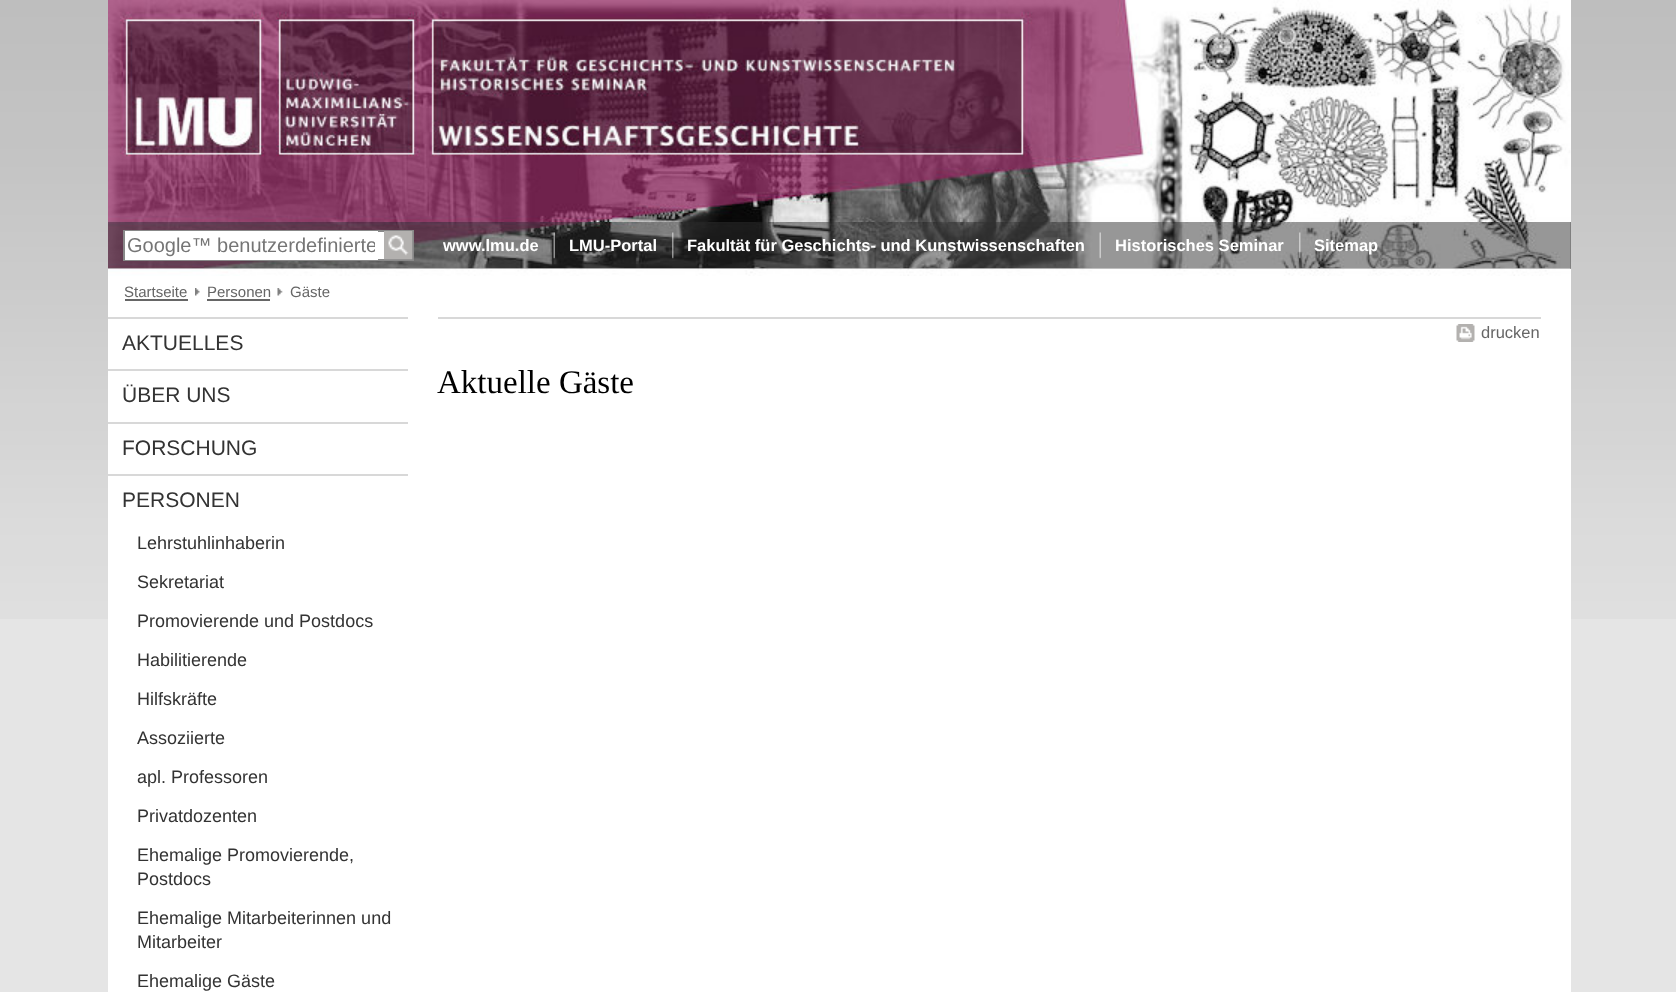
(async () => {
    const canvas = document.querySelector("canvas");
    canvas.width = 1676;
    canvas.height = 992;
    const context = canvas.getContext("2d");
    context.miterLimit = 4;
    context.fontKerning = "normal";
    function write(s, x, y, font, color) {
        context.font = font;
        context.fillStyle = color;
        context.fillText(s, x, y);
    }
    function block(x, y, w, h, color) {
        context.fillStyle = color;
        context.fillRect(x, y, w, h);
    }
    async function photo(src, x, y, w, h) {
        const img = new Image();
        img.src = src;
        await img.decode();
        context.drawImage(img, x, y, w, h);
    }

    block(0, 0, 1676, 992, "rgb(229, 229, 229)");
    await photo("media/1.png", 0, 0, 1676, 619);
    block(108, 0, 1463, 992, "rgb(255, 255, 255)");
    await photo("media/2.png", 108, 0, 1463, 222);
    block(108, 222, 1463, 47, "rgb(102, 102, 102)");
    await photo("media/3.png", 108, 222, 1463, 47);
    block(378, 232, 6, 27, "rgb(255, 255, 255)");
    context.strokeStyle = "rgb(136, 136, 136)";
    context.lineWidth = 2;
    context.strokeRect(124, 231, 289, 29);
    block(125, 231, 253, 29, "rgb(255, 255, 255)");
    context.save();
    context.beginPath();
    context.rect(128, 234, 247, 23);
    context.clip();
    write("Google™ benutzerdefinierte", 127, 252, "20px Liberation Sans", "rgb(117, 117, 117)");
    context.restore();
    await photo("media/4.png", 384, 231, 29, 29);
    write("www.lmu.de", 443, 251, "bold 16.5px Liberation Sans", "rgb(255, 255, 255)");
    await photo("media/5.png", 553, 232, 2, 27);
    write("LMU-Portal", 569, 251, "bold 16.5px Liberation Sans", "rgb(255, 255, 255)");
    await photo("media/6.png", 672, 232, 2, 27);
    write("Fakultät für Geschichts- und Kunstwissenschaften", 687, 251, "bold 16.5px Liberation Sans", "rgb(255, 255, 255)");
    await photo("media/7.png", 1099, 232, 2, 27);
    write("Historisches Seminar", 1115, 251, "bold 16.5px Liberation Sans", "rgb(255, 255, 255)");
    await photo("media/8.png", 1299, 232, 2, 27);
    write("Sitemap", 1314, 251, "bold 16.5px Liberation Sans", "rgb(255, 255, 255)");
    await photo("media/9.png", 108, 268, 1463, 8);
    write("Startseite", 124, 297, "15px Liberation Sans", "rgb(102, 102, 102)");
    block(125, 299, 63, 2, "rgb(102, 102, 102)");
    await photo("media/10.png", 195, 288, 5, 8);
    write("Personen", 207, 297, "15px Liberation Sans", "rgb(102, 102, 102)");
    block(207, 299, 63, 2, "rgb(102, 102, 102)");
    await photo("media/11.png", 277, 288, 6, 8);
    write("Gäste", 290, 297, "15px Liberation Sans", "rgb(102, 102, 102)");
    block(108, 317, 300, 2, "rgb(216, 216, 216)");
    block(108, 369, 300, 2, "rgb(216, 216, 216)");
    write("AKTUELLES", 122, 350, "21px Liberation Sans", "rgb(51, 51, 51)");
    block(108, 422, 300, 2, "rgb(216, 216, 216)");
    write("ÜBER UNS", 122, 402, "21px Liberation Sans", "rgb(51, 51, 51)");
    block(108, 474, 300, 2, "rgb(216, 216, 216)");
    write("FORSCHUNG", 122, 455, "21px Liberation Sans", "rgb(51, 51, 51)");
    write("PERSONEN", 122, 507, "21px Liberation Sans", "rgb(51, 51, 51)");
    write("Lehrstuhlinhaberin", 137, 549, "18px Liberation Sans", "rgb(51, 51, 51)");
    write("Sekretariat", 137, 588, "18px Liberation Sans", "rgb(51, 51, 51)");
    write("Promovierende und Postdocs", 137, 627, "18px Liberation Sans", "rgb(51, 51, 51)");
    write("Habilitierende", 137, 666, "18px Liberation Sans", "rgb(51, 51, 51)");
    write("Hilfskräfte", 137, 705, "18px Liberation Sans", "rgb(51, 51, 51)");
    write("Assoziierte", 137, 744, "18px Liberation Sans", "rgb(51, 51, 51)");
    write("apl. Professoren", 137, 783, "18px Liberation Sans", "rgb(51, 51, 51)");
    write("Privatdozenten", 137, 822, "18px Liberation Sans", "rgb(51, 51, 51)");
    write("Ehemalige Promovierende,", 137, 861, "18px Liberation Sans", "rgb(51, 51, 51)");
    write("Postdocs", 137, 885, "18px Liberation Sans", "rgb(51, 51, 51)");
    write("Ehemalige Mitarbeiterinnen und", 137, 924, "18px Liberation Sans", "rgb(51, 51, 51)");
    write("Mitarbeiter", 137, 948, "18px Liberation Sans", "rgb(51, 51, 51)");
    write("Ehemalige Gäste", 137, 987, "18px Liberation Sans", "rgb(51, 51, 51)");
    block(438, 317, 1103, 2, "rgb(216, 216, 216)");
    await photo("media/12.png", 1456, 324, 19, 18);
    write("drucken", 1481, 338, "16.5px Liberation Sans", "rgb(102, 102, 102)");
    write("Aktuelle Gäste", 437, 393, "33px Liberation Serif", "rgb(0, 0, 0)");
})();
